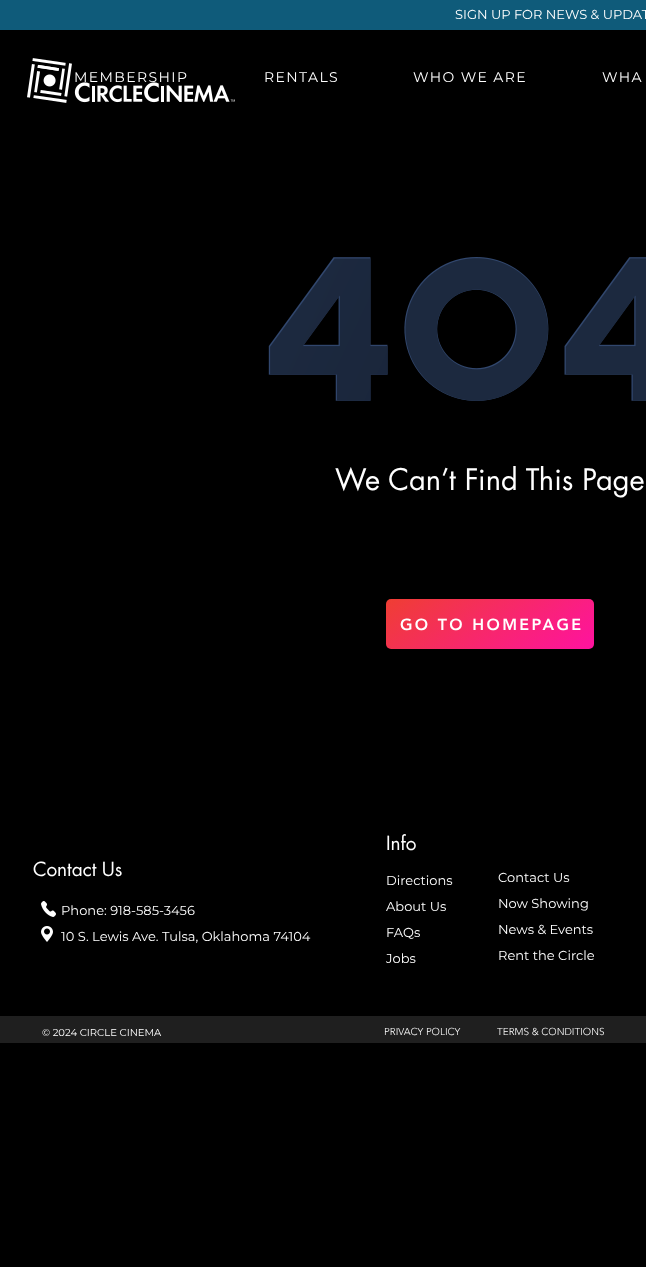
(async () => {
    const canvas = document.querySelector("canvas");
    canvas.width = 646;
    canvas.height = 1267;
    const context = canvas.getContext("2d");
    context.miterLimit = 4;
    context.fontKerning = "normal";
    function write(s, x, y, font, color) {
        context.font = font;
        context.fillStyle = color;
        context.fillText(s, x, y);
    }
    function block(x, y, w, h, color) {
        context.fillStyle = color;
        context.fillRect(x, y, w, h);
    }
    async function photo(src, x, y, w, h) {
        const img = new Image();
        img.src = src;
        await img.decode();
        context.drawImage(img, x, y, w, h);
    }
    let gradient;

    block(0, 0, 646, 1267, "rgb(0, 0, 0)");
    block(0, 0, 646, 30, "rgb(15, 91, 122)");
    write("SIGN UP FOR NEWS & UPDAT", 455, 19, "13px Montserrat", "rgb(255, 255, 255)");
    await photo("media/1.png", 27, 58, 208, 45);
    context.letterSpacing = "1.4px";
    write("MEMBERSHIP", 74, 82, "14px Montserrat", "rgb(255, 255, 255)");
    write("RENTALS", 264, 82, "14px Montserrat", "rgb(255, 255, 255)");
    write("WHO WE ARE", 413, 82, "14px Montserrat", "rgb(255, 255, 255)");
    write("WHA", 602, 82, "14px Montserrat", "rgb(255, 255, 255)");
    await photo("media/2.png", 268, 257, 378, 144);
    context.letterSpacing = "0px";
    write("We Can’t Find This Page", 335, 490, "29px futura", "rgb(255, 255, 255)");
    gradient = context.createLinearGradient(442, 558, 538, 690);
    gradient.addColorStop(0, "rgb(239, 62, 51)");
    gradient.addColorStop(1, "rgb(255, 18, 160)");
    context.fillStyle = gradient;
    context.beginPath();
    context.roundRect(386, 599, 208, 50, 5);
    context.fill();
    context.letterSpacing = "2.4px";
    write("GO TO HOMEPAGE", 400, 630, "900 16px 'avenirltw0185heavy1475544'", "rgb(255, 255, 255)");
    context.letterSpacing = "0px";
    write("Contact Us", 33, 876, "19px futura", "rgb(255, 255, 255)");
    write("Phone: 918-585-3456", 61, 915, "13px Montserrat", "rgb(255, 255, 255)");
    write("10 S. Lewis Ave. Tulsa, Oklahoma 74104", 61, 941, "13px Montserrat", "rgb(255, 255, 255)");
    await photo("media/3.png", 41, 901, 15, 16);
    await photo("media/4.png", 41, 926, 12, 16);
    write("Info", 386, 850, "19px futura", "rgb(255, 255, 255)");
    write("Directions", 386, 885, "13px Montserrat", "rgb(255, 255, 255)");
    write("About Us", 386, 911, "13px Montserrat", "rgb(255, 255, 255)");
    write("FAQs", 386, 937, "13px Montserrat", "rgb(255, 255, 255)");
    write("Jobs", 386, 963, "13px Montserrat", "rgb(255, 255, 255)");
    write("Contact Us", 498, 882, "13px Montserrat", "rgb(255, 255, 255)");
    write("Now Showing", 498, 908, "13px Montserrat", "rgb(255, 255, 255)");
    write("News & Events", 498, 934, "13px Montserrat", "rgb(255, 255, 255)");
    write("Rent the Circle", 498, 960, "13px Montserrat", "rgb(255, 255, 255)");
    block(0, 1016, 646, 27, "rgb(31, 31, 31)");
    write("© 2024 CIRCLE CINEMA", 42, 1036, "10px Montserrat", "rgb(255, 255, 255)");
    write("PRIVACY POLICY", 384, 1035, "300 10px 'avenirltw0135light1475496'", "rgb(255, 255, 255)");
    write("TERMS & CONDITIONS", 497, 1035, "300 10px 'avenirltw0135light1475496'", "rgb(255, 255, 255)");
})();
